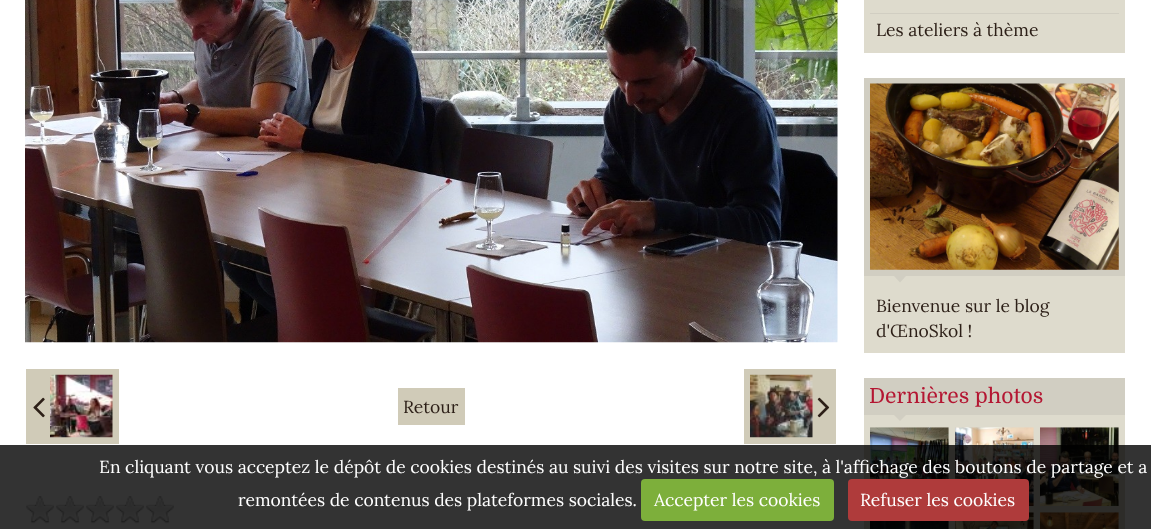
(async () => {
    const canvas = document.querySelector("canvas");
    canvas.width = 1151;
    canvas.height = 529;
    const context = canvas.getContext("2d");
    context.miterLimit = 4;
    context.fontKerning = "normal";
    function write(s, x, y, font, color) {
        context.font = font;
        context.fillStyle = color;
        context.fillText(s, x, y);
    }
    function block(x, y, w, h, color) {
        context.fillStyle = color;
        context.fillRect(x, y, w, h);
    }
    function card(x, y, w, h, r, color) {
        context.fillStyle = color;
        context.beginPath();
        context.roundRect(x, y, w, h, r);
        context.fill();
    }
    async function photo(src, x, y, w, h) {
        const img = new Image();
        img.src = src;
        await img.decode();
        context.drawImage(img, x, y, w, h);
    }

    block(0, 0, 1151, 529, "rgb(255, 255, 255)");
    await photo("media/1.png", 25, 0, 813, 343);
    block(26, 369, 93, 75, "rgb(208, 203, 184)");
    await photo("media/2.png", 33, 397, 12, 21);
    await photo("media/3.png", 50, 374, 63, 64);
    block(398, 388, 67, 37, "rgb(208, 203, 184)");
    write("Retour", 403, 413, "17.5px Lora", "rgb(44, 31, 23)");
    block(744, 369, 92, 75, "rgb(208, 203, 184)");
    await photo("media/4.png", 750, 374, 63, 64);
    await photo("media/5.png", 817, 397, 13, 21);
    await photo("media/6.png", 26, 496, 28, 28);
    await photo("media/7.png", 56, 496, 28, 28);
    await photo("media/7.png", 86, 496, 28, 28);
    await photo("media/7.png", 116, 496, 28, 28);
    await photo("media/7.png", 146, 496, 28, 28);
    block(864, 0, 261, 53, "rgb(222, 219, 205)");
    block(870, 13, 249, 1, "rgb(209, 206, 194)");
    write("Les ateliers à thème", 876, 36, "17.5px Lora", "rgb(44, 31, 23)");
    block(864, 276, 261, 77, "rgb(222, 219, 205)");
    block(864, 78, 261, 198, "rgb(209, 206, 194)");
    await photo("media/8.png", 870, 83, 249, 187);
    context.beginPath();
    context.moveTo(894, 276);
    context.lineTo(906, 276);
    context.lineTo(900, 282.5);
    context.closePath();
    context.fill();
    write("Bienvenue sur le blog", 876, 312, "17.5px Lora", "rgb(44, 31, 23)");
    write("d'ŒnoSkol !", 876, 337, "17.5px Lora", "rgb(44, 31, 23)");
    block(864, 415, 261, 114, "rgb(222, 219, 205)");
    block(864, 378, 261, 37, "rgb(209, 206, 194)");
    write("Dernières photos", 869, 403, "21px Domine", "rgb(180, 22, 50)");
    context.fillStyle = "rgb(209, 206, 194)";
    context.beginPath();
    context.moveTo(894, 415);
    context.lineTo(906, 415);
    context.lineTo(900, 421);
    context.closePath();
    context.fill();
    await photo("media/9.png", 870, 427, 79, 52);
    await photo("media/10.png", 955, 427, 79, 79);
    await photo("media/11.png", 1040, 427, 79, 79);
    await photo("media/12.png", 870, 521, 79, 8);
    await photo("media/13.png", 955, 512, 79, 17);
    await photo("media/14.png", 1040, 512, 79, 17);
    block(0, 445, 1151, 84, "rgba(0, 0, 0, 0.8)");
    write("En cliquant vous acceptez le dépôt de cookies destinés au suivi des visites sur notre site, à l'affichage des boutons de partage et a", 99, 473, "17.5px Lora", "rgb(255, 255, 255)");
    write("remontées de contenus des plateformes sociales.", 238, 506, "17.5px Lora", "rgb(255, 255, 255)");
    card(641, 479, 193, 42, 4, "rgb(125, 175, 59)");
    write("Accepter les cookies", 654, 506, "17.5px Lora", "rgb(255, 255, 255)");
    card(848, 479, 181, 42, 4, "rgb(175, 59, 59)");
    write("Refuser les cookies", 860, 506, "17.5px Lora", "rgb(255, 255, 255)");
})();
